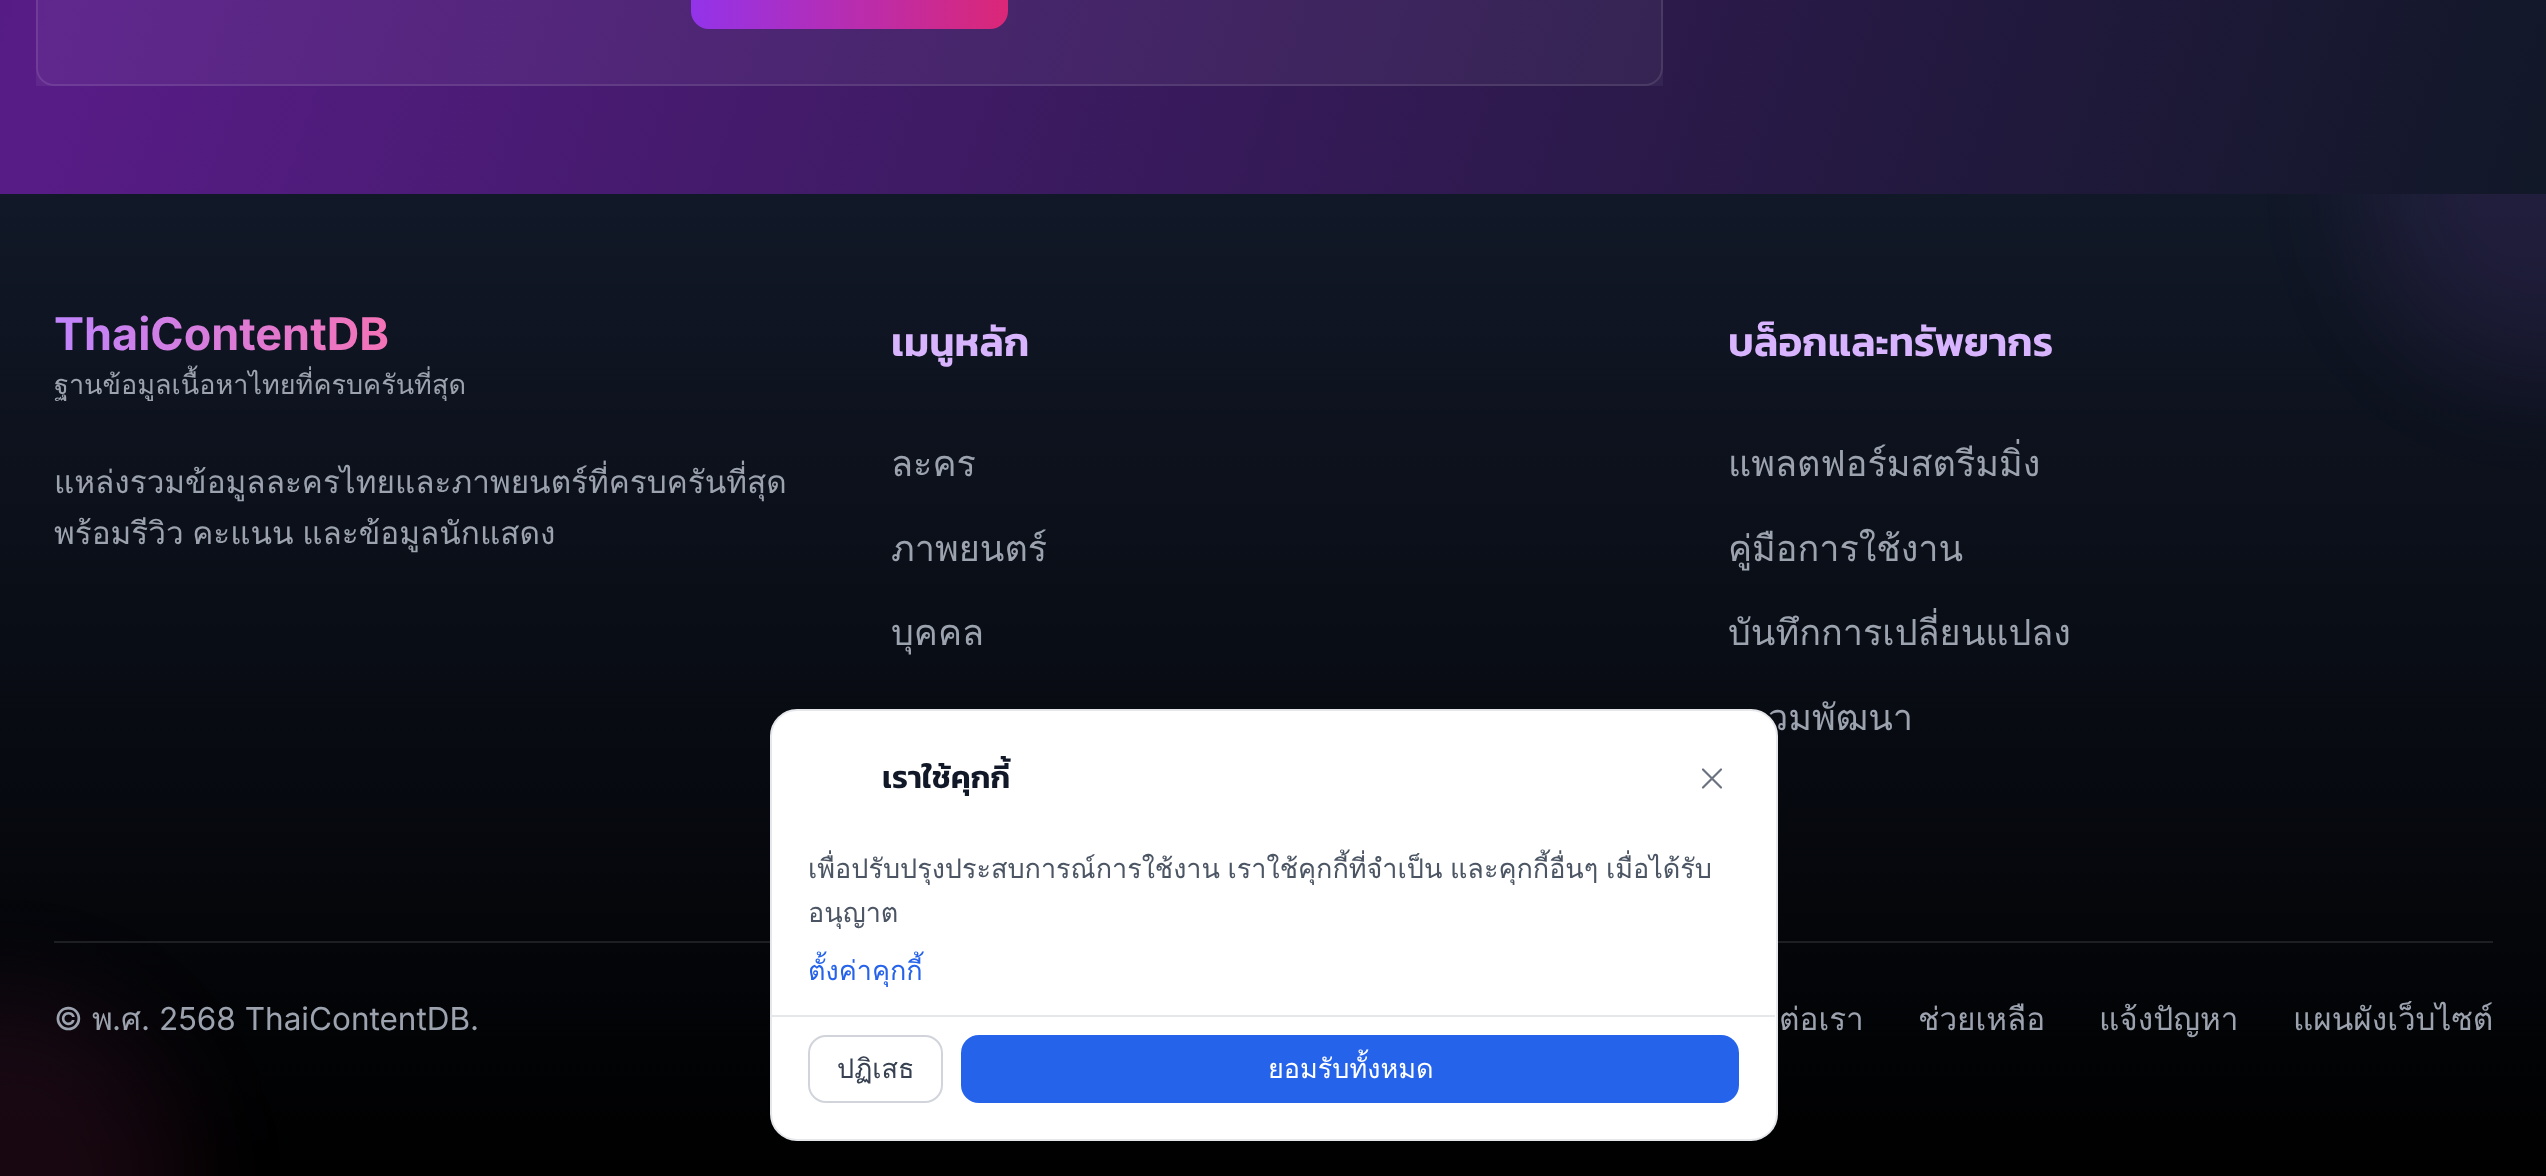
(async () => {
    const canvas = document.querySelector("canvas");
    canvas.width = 2546;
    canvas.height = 1176;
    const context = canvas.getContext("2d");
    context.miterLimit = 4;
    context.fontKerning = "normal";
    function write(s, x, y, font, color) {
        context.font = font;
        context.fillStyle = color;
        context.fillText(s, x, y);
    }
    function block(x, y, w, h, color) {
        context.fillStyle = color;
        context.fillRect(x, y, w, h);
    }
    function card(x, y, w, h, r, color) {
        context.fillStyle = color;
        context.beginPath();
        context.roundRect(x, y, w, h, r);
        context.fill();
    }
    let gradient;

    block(0, 0, 2546, 1176, "rgb(255, 255, 255)");
    gradient = context.createLinearGradient(1274, 193, 1274, 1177);
    gradient.addColorStop(0, "rgb(17, 24, 39)");
    gradient.addColorStop(1, "rgb(0, 0, 0)");
    context.fillStyle = gradient;
    context.fillRect(0, 194, 2546, 982);
    context.fillStyle = "rgba(168, 85, 247, 0.1)";
    context.filter = "blur(54px)";
    context.beginPath();
    context.roundRect(2367, 14, 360, 360, 180);
    context.fill();
    context.filter = "none";
    gradient = context.createLinearGradient(-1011, -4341, 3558, -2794);
    gradient.addColorStop(0, "rgb(17, 24, 39)");
    gradient.addColorStop(0.5, "rgb(88, 28, 135)");
    gradient.addColorStop(1, "rgb(17, 24, 39)");
    context.fillStyle = gradient;
    context.fillRect(0, 0, 2546, 194);
    block(36, 0, 1627, 86, "rgba(255, 255, 255, 0.05)");
    context.beginPath();
    context.roundRect(37, -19, 1625, 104, 17);
    context.strokeStyle = "rgba(255, 255, 255, 0.1)";
    context.lineWidth = 2;
    context.stroke();
    gradient = context.createLinearGradient(691, -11, 1008, -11);
    gradient.addColorStop(0, "rgb(147, 51, 234)");
    gradient.addColorStop(1, "rgb(219, 39, 119)");
    context.fillStyle = gradient;
    context.beginPath();
    context.roundRect(691, -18, 317, 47, 18);
    context.fill();
    context.fillStyle = "rgba(236, 72, 153, 0.1)";
    context.filter = "blur(54px)";
    context.beginPath();
    context.roundRect(-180, 997, 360, 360, 180);
    context.fill();
    context.filter = "none";
    context.font = "bold 45px Inter";
    gradient = context.createLinearGradient(54, 334, 389, 334);
    gradient.addColorStop(0, "rgb(192, 132, 252)");
    gradient.addColorStop(1, "rgb(244, 114, 182)");
    context.fillStyle = gradient;
    context.fillText("ThaiContentDB", 54, 350);
    write("ฐานข้อมูลเนื้อหาไทยที่ครบครันที่สุด", 54, 394, "27px Loma", "rgb(156, 163, 175)");
    write("แหล่งรวมข้อมูลละครไทยและภาพยนตร์ที่ครบครันที่สุด", 54, 493, "31.5px Loma", "rgb(156, 163, 175)");
    context.wordSpacing = "-2px";
    write("พร้อมรีวิว คะแนน และข้อมูลนักแสดง", 54, 544, "31.5px Loma", "rgb(156, 163, 175)");
    context.wordSpacing = "0px";
    write("เมนูหลัก", 891, 356, "600 40.5px Kanit", "rgb(216, 180, 254)");
    write("ละคร", 891, 476, "36px Loma", "rgb(156, 163, 175)");
    write("ภาพยนตร์", 891, 561, "36px Loma", "rgb(156, 163, 175)");
    write("บุคคล", 891, 645, "36px Loma", "rgb(156, 163, 175)");
    write("บล็อกและทรัพยากร", 1728, 356, "600 40.5px Kanit", "rgb(216, 180, 254)");
    write("แพลตฟอร์มสตรีมมิ่ง", 1728, 476, "36px Loma", "rgb(156, 163, 175)");
    write("คู่มือการใช้งาน", 1728, 561, "36px Loma", "rgb(156, 163, 175)");
    write("บันทึกการเปลี่ยนแปลง", 1728, 645, "36px Loma", "rgb(156, 163, 175)");
    write("วมพัฒนา", 1768, 730, "36px Loma", "rgb(156, 163, 175)");
    block(54, 941, 2439, 2, "rgb(29, 31, 34)");
    write("©", 54, 1030, "31.5px Inter", "rgb(156, 163, 175)");
    write("พ", 92, 1030, "31.5px Loma", "rgb(156, 163, 175)");
    write(".", 112, 1030, "31.5px Inter", "rgb(156, 163, 175)");
    write("ศ", 121, 1030, "31.5px Loma", "rgb(156, 163, 175)");
    write(". 2568 ThaiContentDB.", 141, 1030, "31.5px Inter", "rgb(156, 163, 175)");
    write("ต่อเรา", 1779, 1030, "31.5px Loma", "rgb(156, 163, 175)");
    write("ช่วยเหลือ", 1918, 1030, "31.5px Loma", "rgb(156, 163, 175)");
    write("แจ้งปัญหา", 2099, 1030, "31.5px Loma", "rgb(156, 163, 175)");
    write("แผนผังเว็บไซต์", 2293, 1030, "31.5px Loma", "rgb(156, 163, 175)");
    context.fillStyle = "rgb(255, 255, 255)";
    context.beginPath();
    context.roundRect(771, 710, 1006, 430, 26);
    context.fill();
    context.strokeStyle = "rgb(229, 231, 235)";
    context.stroke();
    write("เราใช้คุกกี้", 882, 788, "600 31.5px Kanit", "rgb(17, 24, 39)");
    context.beginPath();
    context.moveTo(1703, 787.5);
    context.lineTo(1721, 769.5);
    context.moveTo(1703, 769.5);
    context.lineTo(1721, 787.5);
    context.strokeStyle = "rgb(107, 114, 128)";
    context.lineWidth = 2.2;
    context.lineCap = "round";
    context.lineJoin = "round";
    context.stroke();
    context.wordSpacing = "-1.5px";
    write("เพื่อปรับปรุงประสบการณ์การใช้งาน เราใช้คุกกี้ที่จำเป็น และคุกกี้อื่นๆ เมื่อได้รับ", 808, 878, "27px Loma", "rgb(75, 85, 99)");
    context.wordSpacing = "0px";
    write("อนุญาต", 808, 922, "27px Loma", "rgb(75, 85, 99)");
    write("ตั้งค่าคุกกี้", 808, 980, "27px Loma", "rgb(37, 99, 235)");
    block(772, 1015, 1003, 2, "rgb(229, 231, 235)");
    context.beginPath();
    context.roundRect(809, 1036, 133, 66, 17);
    context.strokeStyle = "rgb(209, 213, 219)";
    context.lineWidth = 2;
    context.lineJoin = "miter";
    context.stroke();
    write("ปฏิเสธ", 837, 1078, "27px Loma", "rgb(55, 65, 81)");
    card(961, 1035, 778, 68, 18, "rgb(37, 99, 235)");
    write("ยอมรับทั้งหมด", 1268, 1078, "27px Loma", "rgb(255, 255, 255)");
})();
